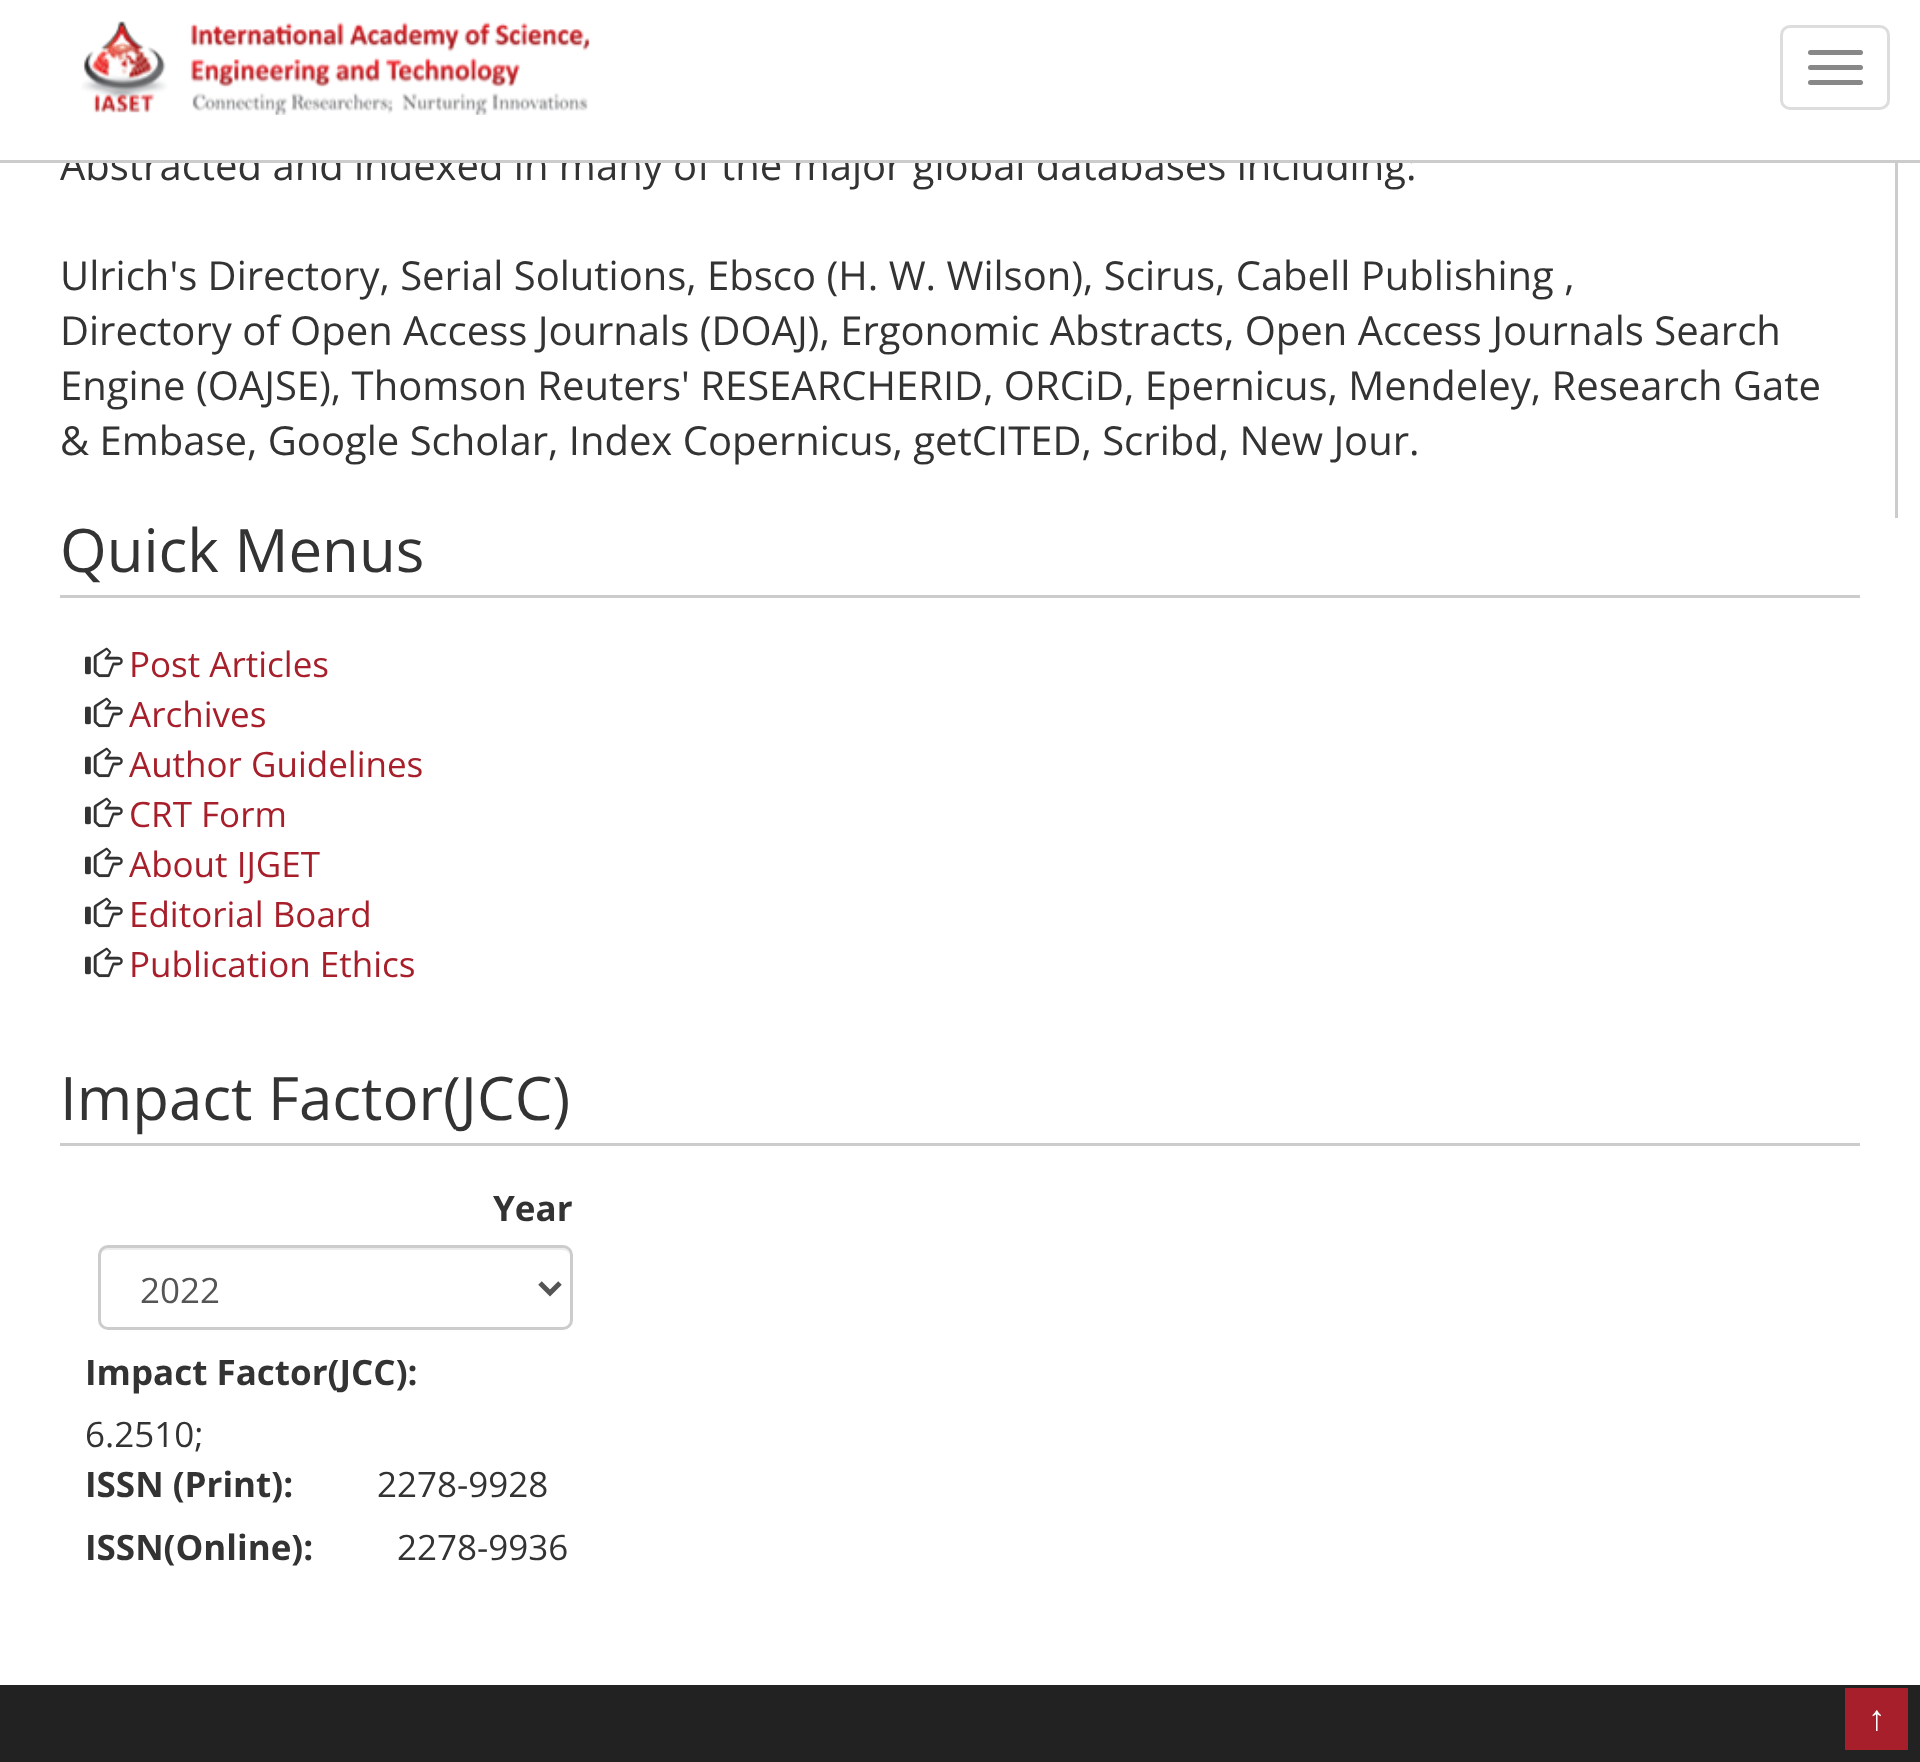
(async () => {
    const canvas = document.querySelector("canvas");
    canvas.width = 1920;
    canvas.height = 1762;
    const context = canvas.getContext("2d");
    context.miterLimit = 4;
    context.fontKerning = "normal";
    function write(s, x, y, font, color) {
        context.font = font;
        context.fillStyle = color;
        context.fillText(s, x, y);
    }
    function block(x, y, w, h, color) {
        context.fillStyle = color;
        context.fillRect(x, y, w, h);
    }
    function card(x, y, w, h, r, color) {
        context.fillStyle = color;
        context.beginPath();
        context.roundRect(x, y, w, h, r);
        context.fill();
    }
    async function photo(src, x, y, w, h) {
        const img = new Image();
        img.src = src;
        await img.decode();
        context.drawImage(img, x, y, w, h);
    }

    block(0, 0, 1920, 1762, "rgb(255, 255, 255)");
    write("Abstracted and indexed in many of the major global databases including:", 60, 180, "40px Open Sans", "rgb(51, 51, 51)");
    block(67, 149, 1347, 11, "rgb(255, 255, 255)");
    block(0, 160, 1920, 3, "rgb(204, 204, 204)");
    await photo("media/1.png", 81, 21, 509, 94);
    context.beginPath();
    context.roundRect(1781.5, 26.5, 107, 82, 8.5);
    context.strokeStyle = "rgb(221, 221, 221)";
    context.lineWidth = 3;
    context.stroke();
    card(1808, 50, 55, 5, 2.5, "rgb(136, 136, 136)");
    card(1808, 65, 55, 5, 2.5, "rgb(136, 136, 136)");
    card(1808, 80, 55, 5, 2.5, "rgb(136, 136, 136)");
    block(1895, 163, 3, 355, "rgb(204, 204, 204)");
    write("Ulrich's Directory, Serial Solutions, Ebsco (H. W. Wilson), Scirus, Cabell Publishing ,", 60, 290, "40px Open Sans", "rgb(51, 51, 51)");
    write("Directory of Open Access Journals (DOAJ), Ergonomic Abstracts, Open Access Journals Search", 60, 345, "40px Open Sans", "rgb(51, 51, 51)");
    write("Engine (OAJSE), Thomson Reuters' RESEARCHERID, ORCiD, Epernicus, Mendeley, Research Gate", 60, 400, "40px Open Sans", "rgb(51, 51, 51)");
    write("& Embase, Google Scholar, Index Copernicus, getCITED, Scribd, New Jour.", 60, 455, "40px Open Sans", "rgb(51, 51, 51)");
    block(60, 595, 1800, 3, "rgb(204, 204, 204)");
    write("Quick Menus", 60, 572, "60px Open Sans", "rgb(51, 51, 51)");
    await photo("media/2.png", 85, 647, 38, 31);
    write("Post Articles", 129, 677, "35px Open Sans", "rgb(167, 31, 43)");
    await photo("media/2.png", 85, 697, 38, 31);
    write("Archives", 129, 727, "35px Open Sans", "rgb(167, 31, 43)");
    await photo("media/2.png", 85, 747, 38, 31);
    write("Author Guidelines", 129, 777, "35px Open Sans", "rgb(167, 31, 43)");
    await photo("media/2.png", 85, 797, 38, 31);
    write("CRT Form", 129, 827, "35px Open Sans", "rgb(167, 31, 43)");
    await photo("media/2.png", 85, 847, 38, 31);
    write("About IJGET", 129, 877, "35px Open Sans", "rgb(167, 31, 43)");
    await photo("media/2.png", 85, 897, 38, 31);
    write("Editorial Board", 129, 927, "35px Open Sans", "rgb(167, 31, 43)");
    await photo("media/2.png", 85, 947, 38, 31);
    write("Publication Ethics", 129, 977, "35px Open Sans", "rgb(167, 31, 43)");
    block(60, 1143, 1800, 3, "rgb(204, 204, 204)");
    write("Impact Factor(JCC)", 60, 1120, "60px Open Sans", "rgb(51, 51, 51)");
    write("Year", 493, 1221, "bold 35px Open Sans", "rgb(51, 51, 51)");
    context.fillStyle = "rgb(236, 236, 236)";
    context.beginPath();
    context.moveTo(108, 1250);
    context.lineTo(562, 1250);
    context.bezierCurveTo(567, 1250, 570, 1253, 570, 1258);
    context.bezierCurveTo(570, 1253, 568, 1248, 562, 1248);
    context.lineTo(108, 1248);
    context.bezierCurveTo(102, 1248, 100, 1253, 100, 1258);
    context.bezierCurveTo(100, 1253, 103, 1250, 108, 1250);
    context.closePath();
    context.fill();
    context.beginPath();
    context.roundRect(99.5, 1246.5, 472, 82, 8.5);
    context.strokeStyle = "rgb(204, 204, 204)";
    context.stroke();
    context.beginPath();
    context.moveTo(540, 1283);
    context.lineTo(550, 1293);
    context.lineTo(560, 1283);
    context.strokeStyle = "rgb(85, 85, 85)";
    context.lineWidth = 5;
    context.stroke();
    write("2022", 140, 1303, "35px Open Sans", "rgb(85, 85, 85)");
    write("Impact Factor(JCC):", 85, 1385, "bold 35px Open Sans", "rgb(51, 51, 51)");
    write("6.2510;", 85, 1447, "35px Open Sans", "rgb(51, 51, 51)");
    write("ISSN (Print):", 85, 1497, "bold 35px Open Sans", "rgb(51, 51, 51)");
    write("2278-9928", 377, 1497, "35px Open Sans", "rgb(51, 51, 51)");
    write("ISSN(Online):", 85, 1560, "bold 35px Open Sans", "rgb(51, 51, 51)");
    write("2278-9936", 397, 1560, "35px Open Sans", "rgb(51, 51, 51)");
    block(0, 1685, 1920, 77, "rgb(34, 34, 34)");
    block(1845, 1688, 63, 62, "rgb(167, 31, 43)");
    write("↑", 1868, 1730, "35px Liberation Sans", "rgb(255, 255, 255)");
})();
